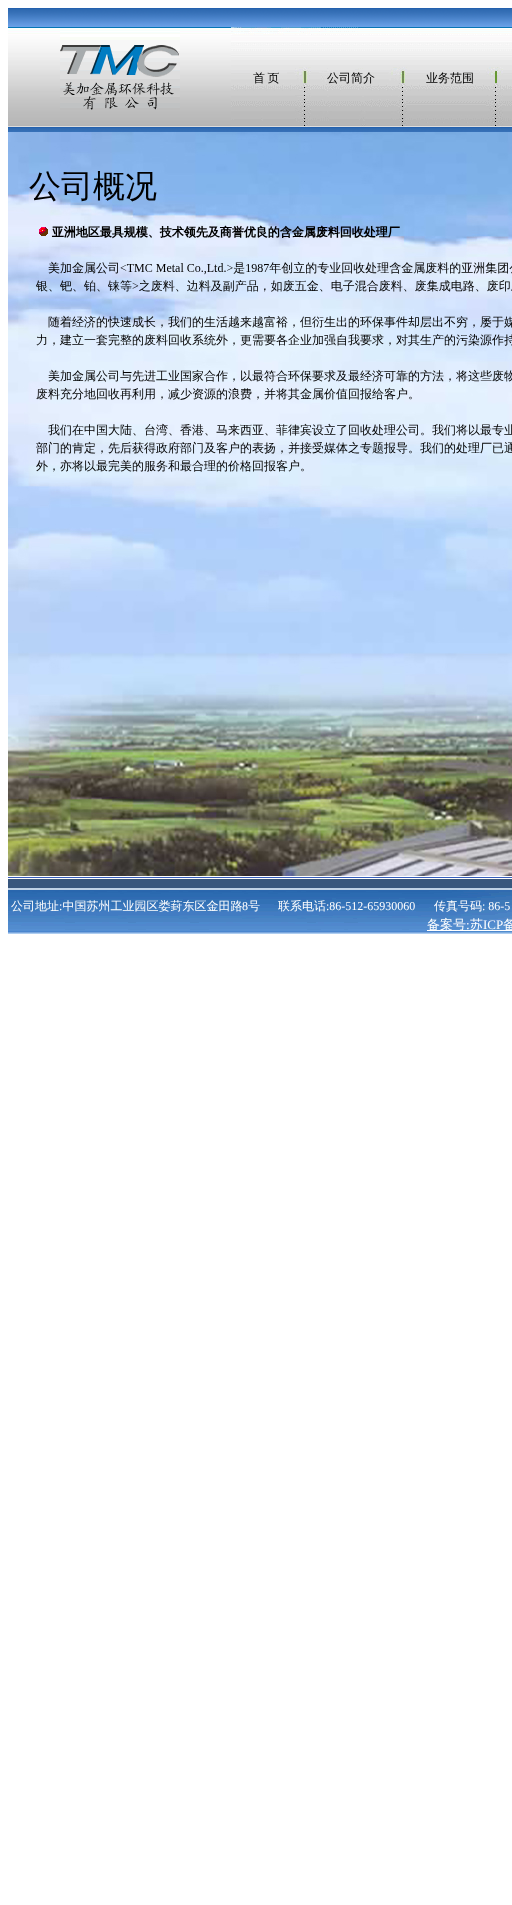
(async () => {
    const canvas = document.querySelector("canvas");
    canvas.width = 512;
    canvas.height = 1905;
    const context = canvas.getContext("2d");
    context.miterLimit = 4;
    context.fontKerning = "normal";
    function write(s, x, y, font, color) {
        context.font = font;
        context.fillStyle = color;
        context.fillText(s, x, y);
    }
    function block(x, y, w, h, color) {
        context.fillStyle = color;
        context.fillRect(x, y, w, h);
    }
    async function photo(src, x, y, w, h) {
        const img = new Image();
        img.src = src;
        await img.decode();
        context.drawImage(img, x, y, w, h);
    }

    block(0, 0, 512, 1905, "rgb(255, 255, 255)");
    await photo("media/1.png", 8, 8, 504, 19);
    await photo("media/2.png", 8, 27, 223, 100);
    await photo("media/3.png", 60, 31, 120, 79);
    await photo("media/4.png", 231, 27, 281, 100);
    context.wordSpacing = "-1px";
    write("首 页", 253, 82, "500 12px WenQuanYi Zen Hei", "rgb(0, 0, 0)");
    context.wordSpacing = "0px";
    write("公司简介", 327, 82, "500 12px WenQuanYi Zen Hei", "rgb(0, 0, 0)");
    write("业务范围", 426, 82, "500 12px WenQuanYi Zen Hei", "rgb(0, 0, 0)");
    await photo("media/5.png", 8, 127, 504, 5);
    await photo("media/6.png", 8, 132, 504, 744);
    block(8, 877, 504, 1, "rgb(55, 94, 187)");
    await photo("media/7.png", 8, 879, 504, 55);
    write("公司地址 中国苏州工业园区娄葑东区金田路", 11, 910, "500 12px WenQuanYi Zen Hei", "rgb(255, 255, 255)");
    write("8", 242, 910, "12px Liberation Serif", "rgb(255, 255, 255)");
    write("号", 248, 910, "500 12px WenQuanYi Zen Hei", "rgb(255, 255, 255)");
    write("联系电话", 278, 910, "500 12px WenQuanYi Zen Hei", "rgb(255, 255, 255)");
    write(":86-512-65930060", 326, 910, "12px Liberation Serif", "rgb(255, 255, 255)");
    write("传真号码", 434, 910, "500 12px WenQuanYi Zen Hei", "rgb(255, 255, 255)");
    write(": 86-5", 482, 910, "12px Liberation Serif", "rgb(255, 255, 255)");
    write(":", 59, 910, "12px Liberation Serif", "rgb(255, 255, 255)");
    block(427, 930, 85, 1, "rgb(255, 255, 255)");
    write("备案号 苏", 427, 929, "500 13px WenQuanYi Zen Hei", "rgb(255, 255, 255)");
    write("ICP", 483, 929, "13px Liberation Serif", "rgb(255, 255, 255)");
    write("备", 503, 929, "500 13px WenQuanYi Zen Hei", "rgb(255, 255, 255)");
    write(":", 466, 929, "13px Liberation Serif", "rgb(255, 255, 255)");
})();
